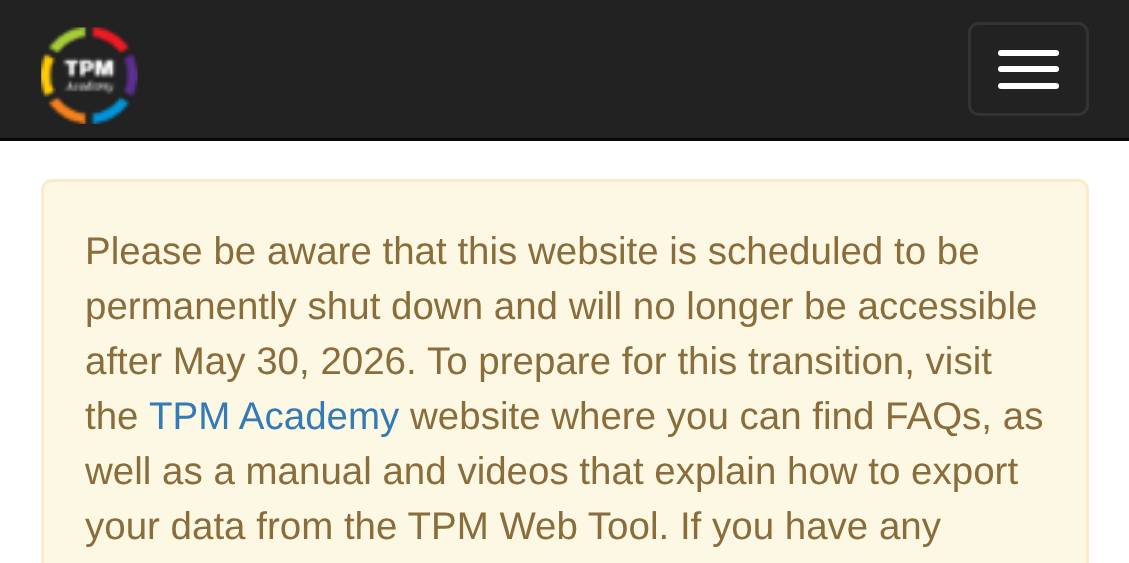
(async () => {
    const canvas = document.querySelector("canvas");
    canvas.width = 1129;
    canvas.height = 563;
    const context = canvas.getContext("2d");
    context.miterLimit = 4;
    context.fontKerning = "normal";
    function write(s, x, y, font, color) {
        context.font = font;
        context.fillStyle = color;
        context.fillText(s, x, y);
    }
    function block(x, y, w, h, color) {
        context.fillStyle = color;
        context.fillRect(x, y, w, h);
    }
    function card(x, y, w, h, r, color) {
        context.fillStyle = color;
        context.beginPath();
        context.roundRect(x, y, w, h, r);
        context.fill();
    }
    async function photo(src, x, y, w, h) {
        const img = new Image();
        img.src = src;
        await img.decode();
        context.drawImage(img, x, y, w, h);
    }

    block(0, 0, 1129, 563, "rgb(255, 255, 255)");
    block(0, 0, 1129, 138, "rgb(34, 34, 34)");
    block(0, 138, 1129, 3, "rgb(8, 8, 8)");
    await photo("media/1.png", 41, 27, 97, 97);
    context.beginPath();
    context.roundRect(969.5, 23.5, 118, 91, 9.5);
    context.strokeStyle = "rgb(51, 51, 51)";
    context.lineWidth = 3;
    context.stroke();
    card(998, 50, 61, 6, 3, "rgb(255, 255, 255)");
    card(998, 66, 61, 6, 3, "rgb(255, 255, 255)");
    card(998, 83, 61, 6, 3, "rgb(255, 255, 255)");
    context.fillStyle = "rgb(252, 248, 227)";
    context.beginPath();
    context.roundRect(42.5, 180.5, 1045, 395, 9.5);
    context.fill();
    context.strokeStyle = "rgb(250, 235, 204)";
    context.stroke();
    write("Please be aware that this website is scheduled to be", 85, 264, "38.5px Liberation Sans", "rgb(138, 109, 59)");
    write("permanently shut down and will no longer be accessible", 85, 319, "38.5px Liberation Sans", "rgb(138, 109, 59)");
    write("after May 30, 2026.", 85, 374, "38.5px Liberation Sans", "rgb(138, 109, 59)");
    write("To prepare for this transition, visit", 427, 374, "38.5px Liberation Sans", "rgb(138, 109, 59)");
    write("the", 85, 429, "38.5px Liberation Sans", "rgb(138, 109, 59)");
    write("TPM Academy", 149, 429, "38.5px Liberation Sans", "rgb(51, 122, 183)");
    write("website where you can find FAQs, as", 410, 429, "38.5px Liberation Sans", "rgb(138, 109, 59)");
    write("well as a manual and videos that explain how to export", 85, 484, "38.5px Liberation Sans", "rgb(138, 109, 59)");
    write("your data from the TPM Web Tool. If you have any", 85, 539, "38.5px Liberation Sans", "rgb(138, 109, 59)");
})();
